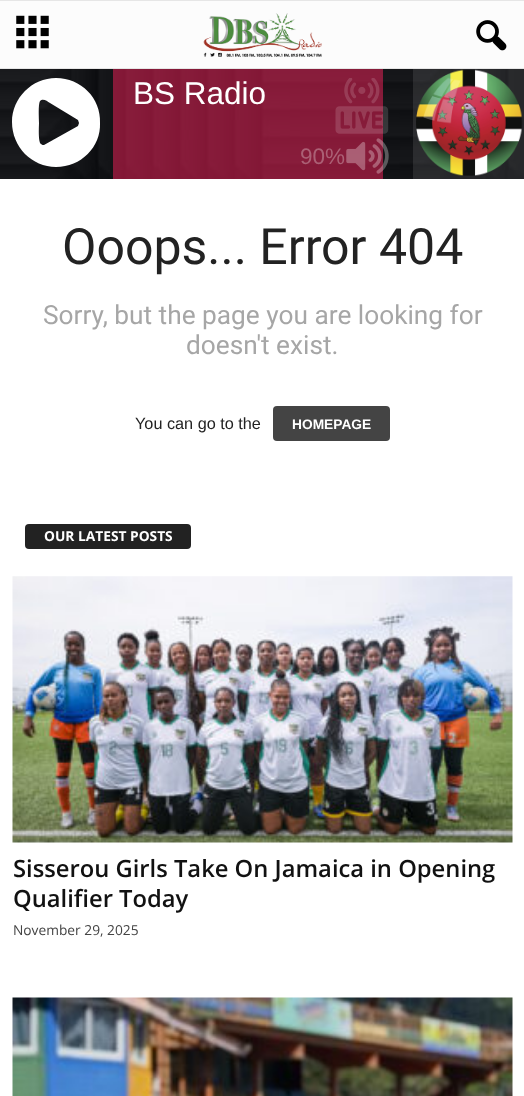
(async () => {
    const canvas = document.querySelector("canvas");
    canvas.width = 524;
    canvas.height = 1096;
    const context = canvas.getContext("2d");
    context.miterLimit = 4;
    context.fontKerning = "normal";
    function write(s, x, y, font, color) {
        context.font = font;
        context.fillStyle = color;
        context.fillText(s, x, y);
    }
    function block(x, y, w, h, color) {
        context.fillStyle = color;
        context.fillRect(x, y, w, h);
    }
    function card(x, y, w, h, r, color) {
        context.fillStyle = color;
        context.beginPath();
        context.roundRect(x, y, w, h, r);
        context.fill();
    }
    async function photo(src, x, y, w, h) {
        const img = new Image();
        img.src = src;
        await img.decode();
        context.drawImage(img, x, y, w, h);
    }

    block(0, 0, 524, 1096, "rgb(255, 255, 255)");
    await photo("media/1.png", 0, 69, 524, 110);
    block(0, 1, 524, 67, "rgb(252, 252, 252)");
    block(0, 0, 524, 1, "rgb(230, 230, 230)");
    block(0, 68, 524, 1, "rgb(230, 230, 230)");
    await photo("media/2.png", 16, 15, 33, 34);
    await photo("media/3.png", 203, 13, 119, 44);
    await photo("media/4.png", 476, 20, 31, 31);
    block(0, 69, 524, 110, "rgba(14, 16, 21, 0.5)");
    context.fillStyle = "rgb(255, 255, 255)";
    context.beginPath();
    context.moveTo(100, 123);
    context.bezierCurveTo(101, 147, 81, 167, 56, 167);
    context.bezierCurveTo(32, 167, 12, 147, 12, 122);
    context.bezierCurveTo(12, 98, 32, 78, 56, 78);
    context.bezierCurveTo(81, 78, 101, 98, 100, 123);
    context.closePath();
    context.moveTo(39, 123);
    context.bezierCurveTo(39, 126, 38, 142, 41, 144);
    context.bezierCurveTo(42, 145, 43, 145, 44, 145);
    context.lineTo(78, 126);
    context.lineTo(79, 123);
    context.lineTo(78, 120);
    context.lineTo(50, 103);
    context.bezierCurveTo(47, 101, 43, 98, 40, 101);
    context.bezierCurveTo(38, 104, 39, 119, 39, 123);
    context.closePath();
    context.fill();
    block(113, 69, 270, 110, "rgba(250, 34, 91, 0.5)");
    block(413, 69, 111, 110, "rgba(255, 255, 255, 0.1)");
    await photo("media/5.png", 416, 69, 107, 107);
    write("BS Radio", 133, 104, "31.5px Liberation Sans", "rgb(255, 255, 255)");
    await photo("media/6.png", 335, 78, 54, 56);
    write("90%", 300, 164, "22.5px Liberation Sans", "rgb(171, 96, 117)");
    await photo("media/7.png", 346, 138, 43, 36);
    write("Ooops... Error 404", 62, 264, "50px Roboto", "rgb(34, 34, 34)");
    write("Sorry, but the page you are looking for", 43, 324, "26.25px Roboto", "rgb(166, 166, 166)");
    write("doesn't exist.", 186, 354, "26.25px Roboto", "rgb(166, 166, 166)");
    write("You can go to the", 135, 429, "16.25px Liberation Sans", "rgb(34, 34, 34)");
    card(273, 406, 117, 35, 4, "rgb(68, 68, 68)");
    write("HOMEPAGE", 292, 429, "bold 13.75px Liberation Sans", "rgb(255, 255, 255)");
    card(25, 524, 166, 25, 4, "rgb(34, 34, 34)");
    write("OUR LATEST POSTS", 44, 541, "bold 13.75px Open Sans", "rgb(255, 255, 255)");
    await photo("media/8.png", 12, 576, 501, 267);
    write("Sisserou Girls Take On Jamaica in Opening", 13, 877, "600 23.75px Open Sans", "rgb(17, 17, 17)");
    write("Qualifier Today", 13, 907, "600 23.75px Open Sans", "rgb(17, 17, 17)");
    write("November 29, 2025", 13, 935, "13.75px Open Sans", "rgb(68, 68, 68)");
    await photo("media/9.png", 12, 997, 501, 99);
})();
